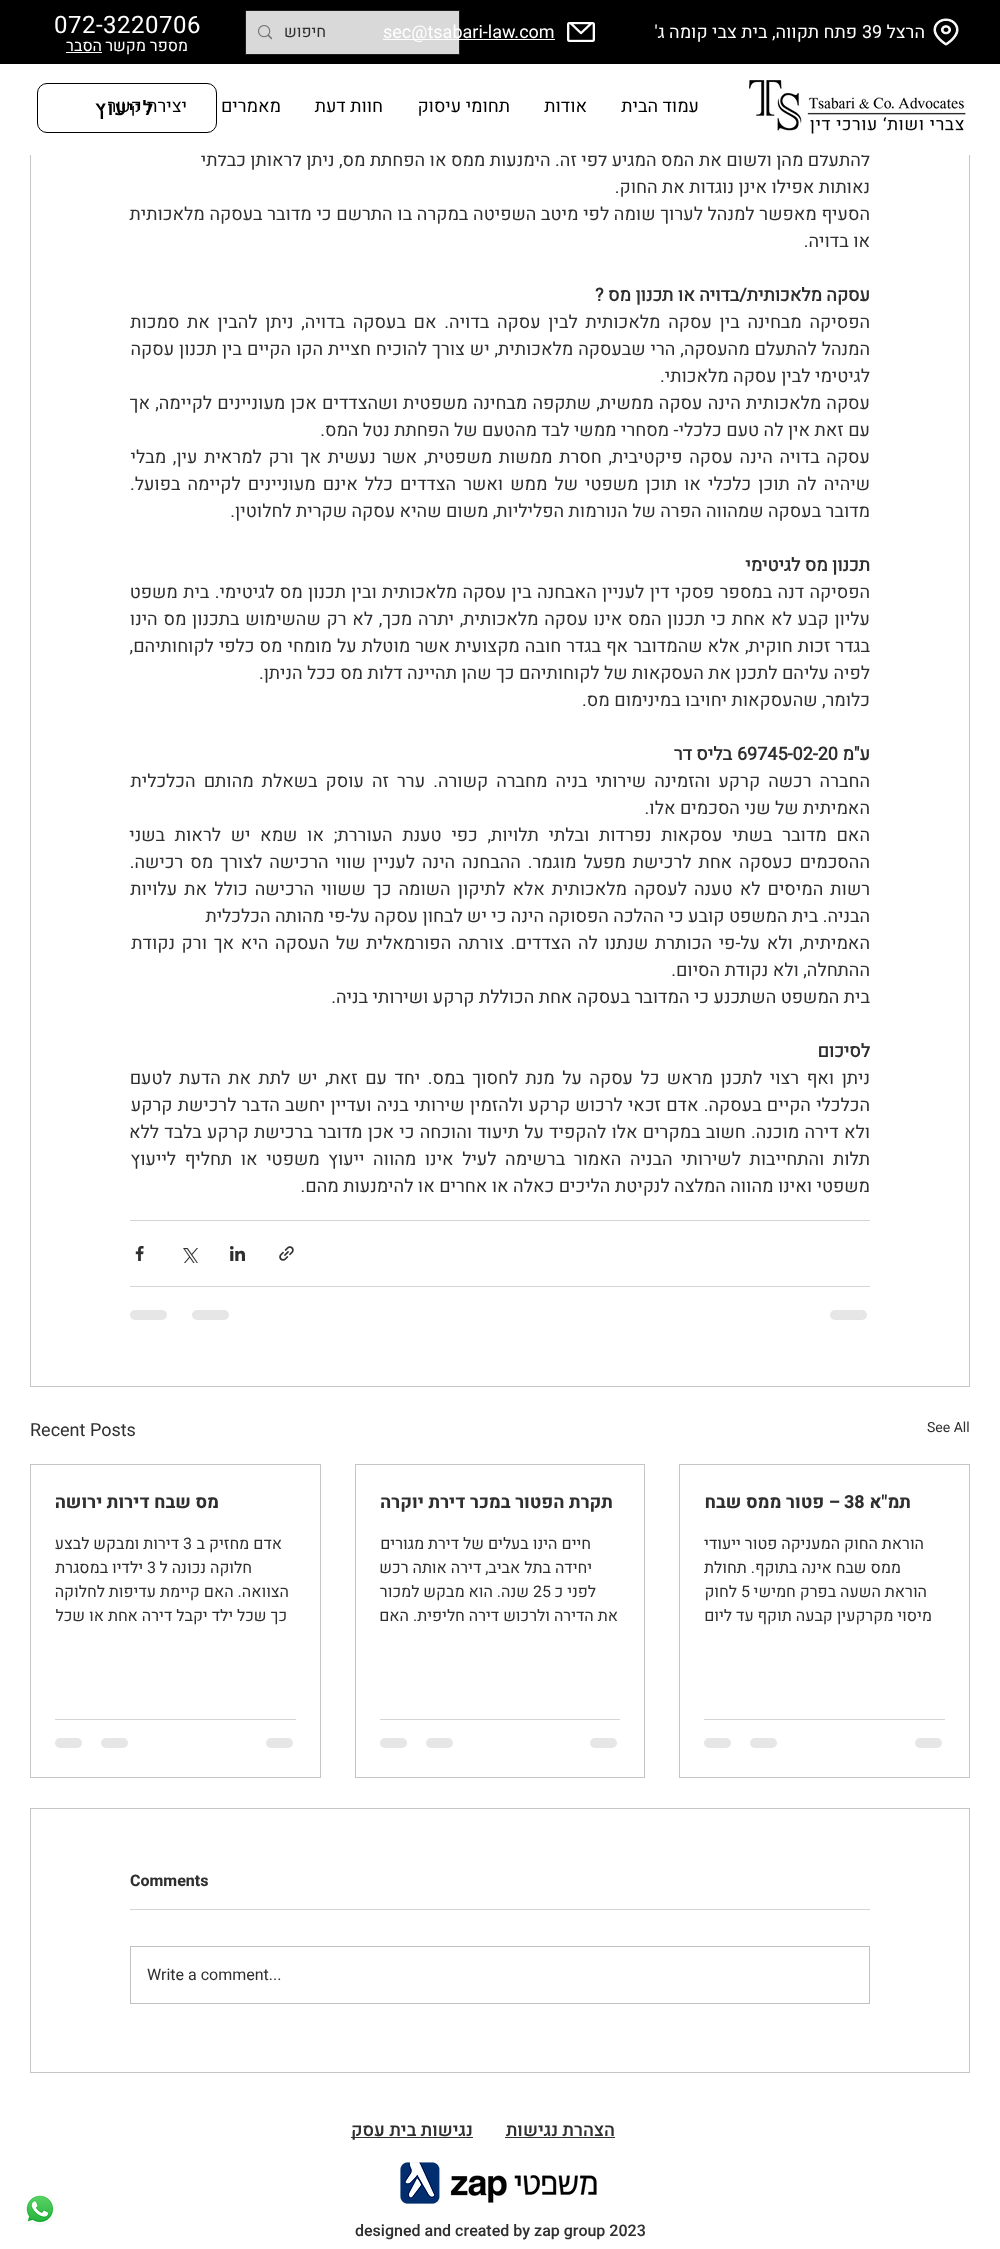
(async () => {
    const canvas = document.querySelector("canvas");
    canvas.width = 1000;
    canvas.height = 2249;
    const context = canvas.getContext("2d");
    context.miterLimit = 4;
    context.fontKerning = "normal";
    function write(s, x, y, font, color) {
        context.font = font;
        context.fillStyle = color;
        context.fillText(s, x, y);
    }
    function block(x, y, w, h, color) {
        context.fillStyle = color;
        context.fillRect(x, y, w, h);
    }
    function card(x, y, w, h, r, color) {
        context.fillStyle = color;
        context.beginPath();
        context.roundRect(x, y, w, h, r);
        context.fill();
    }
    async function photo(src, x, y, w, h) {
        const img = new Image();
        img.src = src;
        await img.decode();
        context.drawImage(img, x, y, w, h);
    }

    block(0, 0, 1000, 2249, "rgb(255, 255, 255)");
    context.strokeStyle = "rgb(197, 197, 197)";
    context.strokeRect(30.5, -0.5, 939, 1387);
    block(0, 0, 1000, 64, "rgb(0, 0, 0)");
    await photo("media/1.png", 933, 18, 26, 28);
    context.direction = "rtl";
    write("הרצל", 925, 38, "18px Heebo", "rgb(255, 255, 255)");
    context.direction = "ltr";
    write("39", 862, 38, "18px Heebo", "rgb(255, 255, 255)");
    context.direction = "rtl";
    write("פתח תקווה, בית צבי קומה ג'", 857, 38, "18px Heebo", "rgb(255, 255, 255)");
    await photo("media/2.png", 567, 22, 28, 20);
    context.strokeStyle = "rgb(28, 28, 28)";
    context.strokeRect(245.5, 10.5, 214, 44);
    block(246, 11, 213, 43, "rgb(217, 217, 217)");
    block(383, 39, 172, 1, "rgb(255, 255, 255)");
    context.direction = "ltr";
    write("sec@tsabari-law.com", 383, 38, "18px Heebo", "rgb(255, 255, 255)");
    context.direction = "rtl";
    write("חיפוש", 326, 37, "16px Heebo", "rgb(47, 47, 47)");
    await photo("media/3.png", 258, 25, 14, 15);
    context.letterSpacing = "0.5px";
    context.direction = "ltr";
    write("072-3220706", 54, 33, "24px Heebo", "rgb(255, 255, 255)");
    context.letterSpacing = "0px";
    context.direction = "rtl";
    write("מספר מקשר", 188, 51, "16px Heebo", "rgb(255, 255, 255)");
    block(66, 52, 36, 1, "rgb(255, 255, 255)");
    write("הסבר", 102, 51, "16px Heebo", "rgb(255, 255, 255)");
    write("להתעלם מהן ולשום את המס המגיע לפי זה. הימנעות ממס או הפחתת מס, ניתן לראותן כבלתי", 870, 166, "18px Heebo", "rgb(47, 47, 47)");
    block(30, 64, 940, 91, "rgb(255, 255, 255)");
    context.beginPath();
    context.roundRect(37.5, 83.5, 179, 49, 9.5);
    context.strokeStyle = "rgb(0, 0, 0)";
    context.stroke();
    context.letterSpacing = "1px";
    write("לייעוץ", 154, 115, "500 20px Heebo", "rgb(0, 0, 0)");
    await photo("media/4.png", 749, 80, 217, 54);
    context.letterSpacing = "0px";
    write("עמוד הבית", 699, 112, "18px Heebo", "rgb(0, 0, 0)");
    write("אודות", 587, 112, "18px Heebo", "rgb(0, 0, 0)");
    write("תחומי עיסוק", 510, 112, "18px Heebo", "rgb(0, 0, 0)");
    write("חוות דעת", 383, 112, "18px Heebo", "rgb(0, 0, 0)");
    write("מאמרים", 281, 112, "18px Heebo", "rgb(0, 0, 0)");
    write("יצירת קשר", 187, 112, "18px Heebo", "rgb(0, 0, 0)");
    write("נאותות אפילו אינן נוגדות את החוק.", 870, 193, "18px Heebo", "rgb(47, 47, 47)");
    context.wordSpacing = "0.25px";
    write("הסעיף מאפשר למנהל לערוך שומה לפי מיטב השפיטה במקרה בו התרשם כי מדובר בעסקה מלאכותית", 870, 220, "18px Heebo", "rgb(47, 47, 47)");
    context.wordSpacing = "0px";
    write("או בדויה.", 870, 247, "18px Heebo", "rgb(47, 47, 47)");
    write("עסקה מלאכותית/בדויה או תכנון מס ?", 870, 301, "bold 18px Heebo", "rgb(47, 47, 47)");
    context.wordSpacing = "3.25px";
    write("הפסיקה מבחינה בין עסקה מלאכותית לבין עסקה בדויה. אם בעסקה בדויה, ניתן להבין את סמכות", 870, 328, "18px Heebo", "rgb(47, 47, 47)");
    context.wordSpacing = "0.5px";
    write("המנהל להתעלם מהעסקה, הרי שבעסקה מלאכותית, יש צורך להוכיח חציית הקו הקיים בין תכנון עסקה", 870, 355, "18px Heebo", "rgb(47, 47, 47)");
    context.wordSpacing = "0px";
    write("לגיטימי לבין עסקה מלאכותי.", 870, 382, "18px Heebo", "rgb(47, 47, 47)");
    context.wordSpacing = "0.75px";
    write("עסקה מלאכותית הינה עסקה ממשית, שתקפה מבחינה משפטית ושהצדדים אכן מעוניינים לקיימה, אך", 870, 409, "18px Heebo", "rgb(47, 47, 47)");
    context.wordSpacing = "0px";
    write("עם זאת אין לה טעם כלכלי- מסחרי ממשי לבד מהטעם של הפחתת נטל המס.", 870, 436, "18px Heebo", "rgb(47, 47, 47)");
    context.wordSpacing = "2.25px";
    write("עסקה בדויה הינה עסקה פיקטיבית, חסרת ממשות משפטית, אשר נעשית אך ורק למראית עין, מבלי", 870, 463, "18px Heebo", "rgb(47, 47, 47)");
    context.wordSpacing = "2.6px";
    write("שיהיה לה תוכן כלכלי או תוכן משפטי של ממש ואשר הצדדים כלל אינם מעוניינים לקיימה בפועל.", 870, 490, "18px Heebo", "rgb(47, 47, 47)");
    context.wordSpacing = "0px";
    write("מדובר בעסקה שמהווה הפרה של הנורמות הפליליות, משום שהיא עסקה שקרית לחלוטין.", 870, 517, "18px Heebo", "rgb(47, 47, 47)");
    write("תכנון מס לגיטימי", 870, 571, "bold 18px Heebo", "rgb(47, 47, 47)");
    context.wordSpacing = "0.9px";
    write("הפסיקה דנה במספר פסקי דין לעניין האבחנה בין עסקה מלאכותית ובין תכנון מס לגיטימי. בית משפט", 870, 598, "18px Heebo", "rgb(47, 47, 47)");
    context.wordSpacing = "1.25px";
    write("עליון קבע לא אחת כי תכנון המס אינו עסקה מלאכותית, יתרה מכך, לא רק שהשימוש בתכנון מס הינו", 870, 625, "18px Heebo", "rgb(47, 47, 47)");
    context.wordSpacing = "0.6px";
    write("בגדר זכות חוקית, אלא שהמדובר אף בגדר חובה מקצועית אשר מוטלת על מומחי מס כלפי לקוחותיהם,", 870, 652, "18px Heebo", "rgb(47, 47, 47)");
    context.wordSpacing = "0px";
    write("לפיה עליהם לתכנן את העסקאות של לקוחותיהם כך שהן תהיינה דלות מס ככל הניתן.", 870, 679, "18px Heebo", "rgb(47, 47, 47)");
    write("כלומר, שהעסקאות יחויבו במינימום מס.", 870, 706, "18px Heebo", "rgb(47, 47, 47)");
    write("ע\"מ", 870, 760, "bold 18px Heebo", "rgb(47, 47, 47)");
    context.direction = "ltr";
    write("69745-02-20", 737, 760, "bold 18px Heebo", "rgb(47, 47, 47)");
    context.direction = "rtl";
    write("בליס דר", 732, 760, "bold 18px Heebo", "rgb(47, 47, 47)");
    context.wordSpacing = "3.6px";
    write("החברה רכשה קרקע והזמינה שירותי בניה מחברה קשורה. ערר זה עוסק בשאלת מהותם הכלכלית", 870, 787, "18px Heebo", "rgb(47, 47, 47)");
    context.wordSpacing = "0px";
    write("האמיתית של שני הסכמים אלו.", 870, 814, "18px Heebo", "rgb(47, 47, 47)");
    context.wordSpacing = "5.25px";
    write("האם מדובר בשתי עסקאות נפרדות ובלתי תלויות, כפי טענת העוררת; או שמא יש לראות בשני", 870, 841, "18px Heebo", "rgb(47, 47, 47)");
    context.wordSpacing = "2.5px";
    write("ההסכמים כעסקה אחת לרכישת מפעל מוגמר. ההבחנה הינה לעניין שווי הרכישה לצורך מס רכישה.", 870, 868, "18px Heebo", "rgb(47, 47, 47)");
    context.wordSpacing = "2.6px";
    write("רשות המיסים לא טענה לעסקה מלאכותית אלא לתיקון השומה כך ששווי הרכישה כולל את עלויות", 870, 895, "18px Heebo", "rgb(47, 47, 47)");
    context.wordSpacing = "0px";
    write("הבניה. בית המשפט קובע כי ההלכה הפסוקה הינה כי יש לבחון עסקה על-פי מהותה הכלכלית", 870, 922, "18px Heebo", "rgb(47, 47, 47)");
    context.wordSpacing = "2.25px";
    write("האמיתית, ולא על-פי הכותרת שנתנו לה הצדדים. צורתה הפורמאלית של העסקה היא אך ורק נקודת", 870, 949, "18px Heebo", "rgb(47, 47, 47)");
    context.wordSpacing = "0px";
    write("ההתחלה, ולא נקודת הסיום.", 870, 976, "18px Heebo", "rgb(47, 47, 47)");
    write("בית המשפט השתכנע כי המדובר בעסקה אחת הכוללת קרקע ושירותי בניה.", 870, 1003, "18px Heebo", "rgb(47, 47, 47)");
    write("לסיכום", 870, 1057, "bold 18px Heebo", "rgb(47, 47, 47)");
    context.wordSpacing = "3px";
    write("ניתן ואף רצוי לתכנן מראש כל עסקה על מנת לחסוך במס. יחד עם זאת, יש לתת את הדעת לטעם", 870, 1084, "18px Heebo", "rgb(47, 47, 47)");
    context.wordSpacing = "0.75px";
    write("הכלכלי הקיים בעסקה. אדם זכאי לרכוש קרקע ולהזמין שירותי בניה ועדיין יחשב הדבר לרכישת קרקע", 870, 1111, "18px Heebo", "rgb(47, 47, 47)");
    write("ולא דירה מוכנה. חשוב במקרים אלו להקפיד על תיעוד והוכחה כי אכן מדובר ברכישת קרקע בלבד ללא", 870, 1138, "18px Heebo", "rgb(47, 47, 47)");
    context.wordSpacing = "4.1px";
    write("תלות והתחייבות לשירותי הבניה האמור ברשימה לעיל אינו מהווה ייעוץ משפטי או תחליף לייעוץ", 870, 1165, "18px Heebo", "rgb(47, 47, 47)");
    context.wordSpacing = "0px";
    write("משפטי ואינו מהווה המלצה לנקיטת הליכים כאלה או אחרים או להימנעות מהם.", 870, 1192, "18px Heebo", "rgb(47, 47, 47)");
    block(130, 1220, 740, 1, "rgb(213, 213, 213)");
    await photo("media/5.png", 279, 1246, 15, 15);
    await photo("media/6.png", 230, 1246, 15, 15);
    await photo("media/7.png", 183, 1248, 15, 15);
    await photo("media/8.png", 135, 1246, 9, 15);
    block(130, 1286, 740, 1, "rgb(213, 213, 213)");
    card(830, 1310, 37, 10, 5, "rgb(230, 230, 230)");
    card(192, 1310, 37, 10, 5, "rgb(230, 230, 230)");
    card(130, 1310, 37, 10, 5, "rgb(230, 230, 230)");
    context.direction = "ltr";
    write("See All", 927, 1432, "14px Heebo", "rgb(47, 47, 47)");
    write("Recent Posts", 30, 1436, "18px Heebo", "rgb(47, 47, 47)");
    context.strokeStyle = "rgb(197, 197, 197)";
    context.strokeRect(679.5, 1464.5, 290, 313);
    context.direction = "rtl";
    write("תמ\"א", 911, 1508, "bold 18px 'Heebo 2'", "rgb(47, 47, 47)");
    context.direction = "ltr";
    write("38", 844, 1508, "bold 18px 'Heebo 2'", "rgb(47, 47, 47)");
    context.direction = "rtl";
    write("– פטור ממס שבח", 840, 1508, "bold 18px 'Heebo 2'", "rgb(47, 47, 47)");
    write("הוראת החוק המעניקה פטור ייעודי", 924, 1549, "16px Heebo", "rgb(47, 47, 47)");
    write("ממס שבח אינה בתוקף. תחולת", 901, 1573, "16px Heebo", "rgb(47, 47, 47)");
    write("הוראת השעה בפרק חמישי", 927, 1597, "16px Heebo", "rgb(47, 47, 47)");
    context.direction = "ltr";
    write("5", 741, 1597, "16px Heebo", "rgb(47, 47, 47)");
    context.direction = "rtl";
    write("לחוק", 737, 1597, "16px Heebo", "rgb(47, 47, 47)");
    write("מיסוי מקרקעין קבעה תוקף עד ליום", 932, 1621, "16px Heebo", "rgb(47, 47, 47)");
    block(704, 1719, 241, 1, "rgb(213, 213, 213)");
    card(915, 1738, 27, 10, 5, "rgb(230, 230, 230)");
    card(750, 1738, 27, 10, 5, "rgb(230, 230, 230)");
    card(704, 1738, 27, 10, 5, "rgb(230, 230, 230)");
    context.strokeRect(355.5, 1464.5, 289, 313);
    write("תקרת הפטור במכר דירת יוקרה", 613, 1508, "bold 18px 'Heebo 2'", "rgb(47, 47, 47)");
    write("חיים הינו בעלים של דירת מגורים", 591, 1549, "16px Heebo", "rgb(47, 47, 47)");
    write("יחידה בתל אביב, דירה אותה רכש", 592, 1573, "16px Heebo", "rgb(47, 47, 47)");
    write("לפני כ", 596, 1597, "16px Heebo", "rgb(47, 47, 47)");
    context.direction = "ltr";
    write("25", 533, 1597, "16px Heebo", "rgb(47, 47, 47)");
    context.direction = "rtl";
    write("שנה. הוא מבקש למכור", 529, 1597, "16px Heebo", "rgb(47, 47, 47)");
    write("את הדירה ולרכוש דירה חליפית. האם", 618, 1621, "16px Heebo", "rgb(47, 47, 47)");
    block(380, 1719, 240, 1, "rgb(213, 213, 213)");
    card(590, 1738, 27, 10, 5, "rgb(230, 230, 230)");
    card(426, 1738, 27, 10, 5, "rgb(230, 230, 230)");
    card(380, 1738, 27, 10, 5, "rgb(230, 230, 230)");
    context.strokeRect(30.5, 1464.5, 290, 313);
    write("מס שבח דירות ירושה", 219, 1508, "bold 18px 'Heebo 2'", "rgb(47, 47, 47)");
    write("אדם מחזיק ב", 282, 1549, "16px Heebo", "rgb(47, 47, 47)");
    context.direction = "ltr";
    write("3", 183, 1549, "16px Heebo", "rgb(47, 47, 47)");
    context.direction = "rtl";
    write("דירות ומבקש לבצע", 179, 1549, "16px Heebo", "rgb(47, 47, 47)");
    write("חלוקה נכונה ל", 252, 1573, "16px Heebo", "rgb(47, 47, 47)");
    context.direction = "ltr";
    write("3", 147, 1573, "16px Heebo", "rgb(47, 47, 47)");
    context.direction = "rtl";
    write("ילדיו במסגרת", 143, 1573, "16px Heebo", "rgb(47, 47, 47)");
    write("הצוואה. האם קיימת עדיפות לחלוקה", 289, 1597, "16px Heebo", "rgb(47, 47, 47)");
    write("כך שכל ילד יקבל דירה אחת או שכל", 287, 1621, "16px Heebo", "rgb(47, 47, 47)");
    block(55, 1719, 241, 1, "rgb(213, 213, 213)");
    card(266, 1738, 27, 10, 5, "rgb(230, 230, 230)");
    card(101, 1738, 27, 10, 5, "rgb(230, 230, 230)");
    card(55, 1738, 27, 10, 5, "rgb(230, 230, 230)");
    context.strokeRect(30.5, 1808.5, 939, 264);
    context.direction = "ltr";
    write("Comments", 130, 1886, "bold 16px 'Heebo 2'", "rgb(47, 47, 47)");
    block(130, 1909, 740, 1, "rgb(213, 213, 213)");
    context.strokeStyle = "rgb(193, 193, 193)";
    context.strokeRect(130.5, 1946.5, 739, 57);
    write("Write a comment...", 147, 1980, "16px Heebo", "rgb(47, 47, 47)");
    context.direction = "rtl";
    write("הצהרת נגישות", 615, 2136, "500 18px Heebo", "rgb(47, 47, 47)");
    block(505, 2137, 110, 1, "rgb(47, 47, 47)");
    block(351, 2137, 122, 1, "rgb(47, 47, 47)");
    write("נגישות בית עסק", 473, 2136, "500 18px Heebo", "rgb(47, 47, 47)");
    await photo("media/9.png", 400, 2162, 197, 42);
    context.direction = "ltr";
    write("designed and created by zap group 2023", 355, 2236, "500 16px Heebo", "rgb(47, 47, 47)");
    await photo("media/10.png", 24, 2195, 32, 30);
})();
